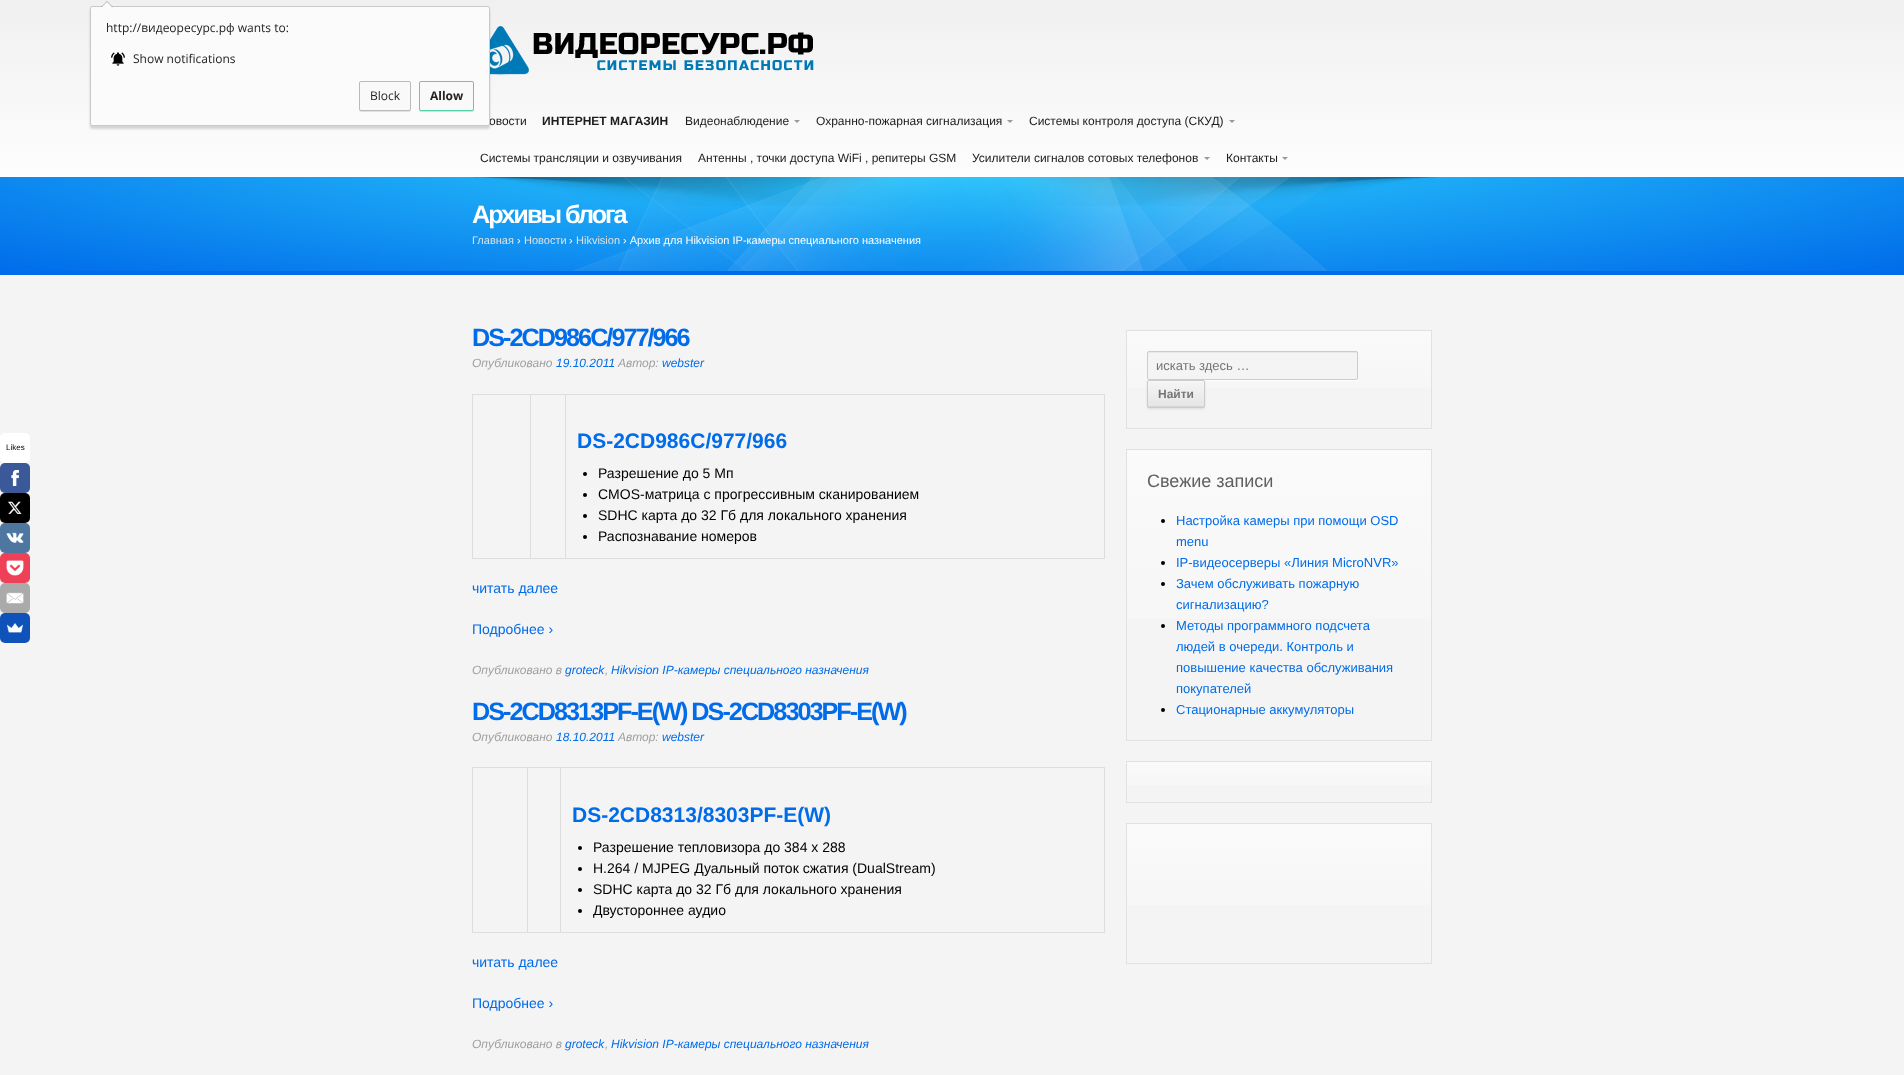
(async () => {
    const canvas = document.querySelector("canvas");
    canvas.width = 1904;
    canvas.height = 1075;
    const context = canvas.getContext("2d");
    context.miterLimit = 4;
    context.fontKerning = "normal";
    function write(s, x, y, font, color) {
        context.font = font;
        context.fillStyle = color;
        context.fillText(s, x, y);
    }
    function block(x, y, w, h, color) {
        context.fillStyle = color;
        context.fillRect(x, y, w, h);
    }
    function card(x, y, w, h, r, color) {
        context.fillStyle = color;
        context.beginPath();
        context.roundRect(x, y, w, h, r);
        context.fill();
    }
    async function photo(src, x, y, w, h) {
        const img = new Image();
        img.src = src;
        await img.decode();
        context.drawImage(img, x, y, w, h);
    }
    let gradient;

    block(0, 0, 1904, 1075, "rgb(244, 244, 244)");
    gradient = context.createLinearGradient(952, 0, 952, 177);
    gradient.addColorStop(0, "rgb(240, 240, 240)");
    gradient.addColorStop(1, "rgb(253, 253, 253)");
    context.fillStyle = gradient;
    context.fillRect(0, 0, 1904, 176);
    await photo("media/2.png", 490, 26, 324, 50);
    context.fillStyle = "rgba(0, 0, 0, 0.15)";
    context.filter = "blur(1px)";
    context.beginPath();
    context.roundRect(90, 9, 400, 120, 2);
    context.fill();
    context.filter = "none";
    write("овости", 489, 125, "12px Liberation Sans", "rgb(29, 27, 27)");
    context.fillStyle = "rgb(251, 251, 251)";
    context.beginPath();
    context.roundRect(90.5, 6.5, 399, 119, 1.5);
    context.fill();
    context.strokeStyle = "rgb(201, 201, 201)";
    context.stroke();
    context.fillStyle = "rgba(0, 0, 0, 0.25)";
    context.beginPath();
    context.moveTo(113, 7);
    context.lineTo(101, 7);
    context.lineTo(107, 1);
    context.closePath();
    context.fill();
    context.fillStyle = "rgb(251, 251, 251)";
    context.beginPath();
    context.moveTo(113, 8);
    context.lineTo(101, 8);
    context.lineTo(107, 2);
    context.closePath();
    context.fill();
    write("http://видеоресурс.рф wants to:", 106, 32, "12px Open Sans", "rgb(34, 34, 34)");
    await photo("media/1.png", 111, 52, 14, 14);
    write("Show notifications", 133, 63, "12px Open Sans", "rgb(34, 34, 34)");
    context.fillStyle = "rgba(0, 0, 0, 0.1)";
    context.filter = "blur(0.5px)";
    context.beginPath();
    context.roundRect(359, 82, 52, 30, 2);
    context.fill();
    context.filter = "none";
    context.fillStyle = "rgb(249, 249, 249)";
    context.beginPath();
    context.roundRect(359.5, 81.5, 51, 29, 1.5);
    context.fill();
    context.strokeStyle = "rgb(186, 186, 186)";
    context.stroke();
    write("Block", 370, 100, "12px Open Sans", "rgb(34, 34, 34)");
    context.fillStyle = "rgba(38, 93, 134, 0.18)";
    context.filter = "blur(0.5px)";
    context.beginPath();
    context.roundRect(419, 82, 55, 30, 2);
    context.fill();
    context.filter = "none";
    context.fillStyle = "rgb(249, 249, 249)";
    context.beginPath();
    context.roundRect(419.5, 81.5, 54, 29, 1.5);
    context.fill();
    context.strokeStyle = "rgb(87, 209, 173)";
    context.stroke();
    write("Allow", 430, 100, "bold 12px Open Sans", "rgb(34, 34, 34)");
    gradient = context.createRadialGradient(952, 953.42, 0, 952, 953.42, 1346);
    gradient.addColorStop(0, "rgb(50, 216, 255)");
    gradient.addColorStop(1, "rgb(0, 108, 234)");
    context.fillStyle = gradient;
    context.beginPath();
    context.rect(0, 177, 1904, 94);
    context.save();
    context.clip();
    context.scale(1, 192 / 1346);
    context.fillRect(0, 0, 1904, 7537);
    context.restore();
    block(0, 271, 1904, 4, "rgb(0, 108, 234)");
    block(0, 176, 1904, 1, "rgb(255, 255, 255)");
    write("ИНТЕРНЕТ МАГАЗИН", 542, 125, "bold 12px Liberation Sans", "rgb(29, 27, 27)");
    write("Видеонаблюдение", 685, 125, "12px Liberation Sans", "rgb(29, 27, 27)");
    context.fillStyle = "rgb(153, 153, 153)";
    context.beginPath();
    context.moveTo(794, 120);
    context.lineTo(800, 120);
    context.lineTo(797, 123);
    context.closePath();
    context.fill();
    write("Охранно-пожарная сигнализация", 816, 125, "12px Liberation Sans", "rgb(29, 27, 27)");
    context.fillStyle = "rgb(153, 153, 153)";
    context.beginPath();
    context.moveTo(1007, 120);
    context.lineTo(1013, 120);
    context.lineTo(1010, 123);
    context.closePath();
    context.fill();
    write("Системы контроля доступа (СКУД)", 1029, 125, "12px Liberation Sans", "rgb(29, 27, 27)");
    context.fillStyle = "rgb(153, 153, 153)";
    context.beginPath();
    context.moveTo(1229, 120);
    context.lineTo(1235, 120);
    context.lineTo(1232, 123);
    context.closePath();
    context.fill();
    write("Системы трансляции и озвучивания", 480, 162, "12px Liberation Sans", "rgb(29, 27, 27)");
    write("Антенны , точки доступа WiFi , репитеры GSM", 698, 162, "12px Liberation Sans", "rgb(29, 27, 27)");
    write("Усилители сигналов сотовых телефонов", 972, 162, "12px Liberation Sans", "rgb(29, 27, 27)");
    context.fillStyle = "rgb(153, 153, 153)";
    context.beginPath();
    context.moveTo(1204, 157);
    context.lineTo(1210, 157);
    context.lineTo(1207, 160);
    context.closePath();
    context.fill();
    write("Контакты", 1226, 162, "12px Liberation Sans", "rgb(29, 27, 27)");
    context.fillStyle = "rgb(153, 153, 153)";
    context.beginPath();
    context.moveTo(1282, 157);
    context.lineTo(1288, 157);
    context.lineTo(1285, 160);
    context.closePath();
    context.fill();
    await photo("media/3.png", 474, 177, 963, 29);
    await photo("media/4.png", 573, 177, 767, 94);
    context.letterSpacing = "-2px";
    write("Архивы блога", 472, 223, "bold 25.25px Liberation Sans", "rgb(255, 255, 255)");
    context.letterSpacing = "0px";
    write("Главная", 472, 244, "11px Liberation Sans", "rgb(225, 225, 225)");
    write("›", 517, 244, "11px Liberation Sans", "rgb(255, 255, 255)");
    write("Новости", 524, 244, "11px Liberation Sans", "rgb(225, 225, 225)");
    write("›", 569, 244, "11px Liberation Sans", "rgb(255, 255, 255)");
    write("Hikvision", 576, 244, "11px Liberation Sans", "rgb(225, 225, 225)");
    write("› Архив для Hikvision IP-камеры специального назначения", 623, 244, "11px Liberation Sans", "rgb(255, 255, 255)");
    card(0, 433, 30, 30, 5, "rgb(255, 255, 255)");
    write("Likes", 6, 450, "8px Liberation Sans", "rgb(0, 0, 0)");
    card(0, 463, 30, 30, 5, "rgb(59, 89, 152)");
    await photo("media/5.png", 11, 470, 8, 16);
    card(0, 493, 30, 30, 5, "rgb(0, 0, 0)");
    await photo("media/6.png", 7, 501, 15, 13);
    card(0, 523, 30, 30, 5, "rgb(77, 118, 161)");
    await photo("media/7.png", 6, 532, 18, 11);
    card(0, 553, 30, 30, 5, "rgb(238, 64, 86)");
    await photo("media/8.png", 6, 560, 18, 16);
    card(0, 583, 30, 30, 5, "rgb(170, 170, 170)");
    await photo("media/9.png", 6, 592, 18, 12);
    card(0, 613, 30, 30, 5, "rgb(15, 82, 186)");
    await photo("media/10.png", 7, 623, 16, 10);
    context.letterSpacing = "-2px";
    write("DS-2CD986C/977/966", 472, 346, "bold 25.25px Liberation Sans", "rgb(0, 108, 234)");
    context.letterSpacing = "0px";
    write("Опубликовано", 472, 367, "italic 12px Liberation Sans", "rgb(159, 159, 159)");
    write("19.10.2011", 556, 367, "italic 12px Liberation Sans", "rgb(0, 108, 234)");
    write("Автор:", 618, 367, "italic 12px Liberation Sans", "rgb(159, 159, 159)");
    write("webster", 662, 367, "italic 12px Liberation Sans", "rgb(0, 108, 234)");
    block(472, 394, 633, 1, "rgb(221, 221, 221)");
    block(1104, 394, 1, 165, "rgb(221, 221, 221)");
    block(472, 558, 633, 1, "rgb(221, 221, 221)");
    block(472, 394, 1, 165, "rgb(221, 221, 221)");
    block(530, 394, 1, 165, "rgb(221, 221, 221)");
    block(565, 394, 1, 165, "rgb(221, 221, 221)");
    write("DS-2CD986C/977/966", 577, 448, "bold 21px Liberation Sans", "rgb(0, 108, 234)");
    context.fillStyle = "rgb(0, 0, 0)";
    context.beginPath();
    context.arc(585, 474, 2, 0, Math.PI * 2);
    context.fill();
    write("Разрешение до 5 Мп", 598, 478, "14px Liberation Sans", "rgb(0, 0, 0)");
    context.beginPath();
    context.arc(585, 495, 2, 0, Math.PI * 2);
    context.fill();
    write("CMOS-матрица с прогрессивным сканированием", 598, 499, "14px Liberation Sans", "rgb(0, 0, 0)");
    context.beginPath();
    context.arc(585, 516, 2, 0, Math.PI * 2);
    context.fill();
    write("SDHC карта до 32 Гб для локального хранения", 598, 520, "14px Liberation Sans", "rgb(0, 0, 0)");
    context.beginPath();
    context.arc(585, 537, 2, 0, Math.PI * 2);
    context.fill();
    write("Распознавание номеров", 598, 541, "14px Liberation Sans", "rgb(0, 0, 0)");
    write("читать далее", 472, 593, "14px Liberation Sans", "rgb(0, 108, 234)");
    write("Подробнее ›", 472, 634, "14px Liberation Sans", "rgb(0, 108, 234)");
    write("Опубликовано в", 472, 674, "italic 12px Liberation Sans", "rgb(159, 159, 159)");
    write("groteck", 565, 674, "italic 12px Liberation Sans", "rgb(0, 108, 234)");
    write("Hikvision IP-камеры специального назначения", 611, 674, "italic 12px Liberation Sans", "rgb(0, 108, 234)");
    write(",", 605, 674, "italic 12px Liberation Sans", "rgb(159, 159, 159)");
    context.letterSpacing = "-2px";
    write("DS-2CD8313PF-E(W) DS-2CD8303PF-E(W)", 472, 720, "bold 25.25px Liberation Sans", "rgb(0, 108, 234)");
    context.letterSpacing = "0px";
    write("Опубликовано", 472, 741, "italic 12px Liberation Sans", "rgb(159, 159, 159)");
    write("18.10.2011", 556, 741, "italic 12px Liberation Sans", "rgb(0, 108, 234)");
    write("Автор:", 618, 741, "italic 12px Liberation Sans", "rgb(159, 159, 159)");
    write("webster", 662, 741, "italic 12px Liberation Sans", "rgb(0, 108, 234)");
    block(472, 767, 633, 1, "rgb(221, 221, 221)");
    block(1104, 767, 1, 166, "rgb(221, 221, 221)");
    block(472, 932, 633, 1, "rgb(221, 221, 221)");
    block(472, 767, 1, 166, "rgb(221, 221, 221)");
    block(527, 767, 1, 166, "rgb(221, 221, 221)");
    block(560, 767, 1, 166, "rgb(221, 221, 221)");
    write("DS-2CD8313/8303PF-E(W)", 572, 822, "bold 21px Liberation Sans", "rgb(0, 108, 234)");
    context.fillStyle = "rgb(0, 0, 0)";
    context.beginPath();
    context.arc(580, 848, 2, 0, Math.PI * 2);
    context.fill();
    write("Разрешение тепловизора до 384 х 288", 593, 852, "14px Liberation Sans", "rgb(0, 0, 0)");
    context.beginPath();
    context.arc(580, 869, 2, 0, Math.PI * 2);
    context.fill();
    write("H.264 / MJPEG Дуальный поток сжатия (DualStream)", 593, 873, "14px Liberation Sans", "rgb(0, 0, 0)");
    context.beginPath();
    context.arc(580, 890, 2, 0, Math.PI * 2);
    context.fill();
    write("SDHC карта до 32 Гб для локального хранения", 593, 894, "14px Liberation Sans", "rgb(0, 0, 0)");
    context.beginPath();
    context.arc(580, 911, 2, 0, Math.PI * 2);
    context.fill();
    write("Двустороннее аудио", 593, 915, "14px Liberation Sans", "rgb(0, 0, 0)");
    write("читать далее", 472, 967, "14px Liberation Sans", "rgb(0, 108, 234)");
    write("Подробнее ›", 472, 1008, "14px Liberation Sans", "rgb(0, 108, 234)");
    write("Опубликовано в", 472, 1048, "italic 12px Liberation Sans", "rgb(159, 159, 159)");
    write("groteck", 565, 1048, "italic 12px Liberation Sans", "rgb(0, 108, 234)");
    write("Hikvision IP-камеры специального назначения", 611, 1048, "italic 12px Liberation Sans", "rgb(0, 108, 234)");
    write(",", 605, 1048, "italic 12px Liberation Sans", "rgb(159, 159, 159)");
    gradient = context.createLinearGradient(1279, 331, 1279, 428);
    gradient.addColorStop(0, "rgb(250, 250, 250)");
    gradient.addColorStop(1, "rgb(244, 244, 244)");
    context.fillStyle = gradient;
    context.fillRect(1127, 331, 304, 57);
    context.strokeStyle = "rgb(225, 225, 225)";
    context.strokeRect(1126.5, 330.5, 305, 98);
    context.fillStyle = "rgb(255, 255, 255)";
    context.beginPath();
    context.moveTo(1147, 378);
    context.bezierCurveTo(1147, 379, 1147, 381, 1149, 381);
    context.lineTo(1356, 381);
    context.bezierCurveTo(1358, 381, 1358, 379, 1358, 378);
    context.bezierCurveTo(1358, 379, 1357, 380, 1356, 380);
    context.lineTo(1149, 380);
    context.bezierCurveTo(1148, 380, 1147, 379, 1147, 378);
    context.closePath();
    context.fill();
    card(1147, 351, 211, 29, 2, "rgb(244, 244, 244)");
    context.fillStyle = "rgb(232, 232, 232)";
    context.beginPath();
    context.moveTo(1149, 353);
    context.lineTo(1357, 353);
    context.lineTo(1357, 354);
    context.lineTo(1357, 352);
    context.lineTo(1356, 352);
    context.lineTo(1149, 352);
    context.bezierCurveTo(1148, 352, 1148, 353, 1148, 354);
    context.bezierCurveTo(1148, 353, 1148, 353, 1149, 353);
    context.closePath();
    context.fill();
    context.beginPath();
    context.roundRect(1147.5, 351.5, 210, 28, 1.5);
    context.strokeStyle = "rgb(204, 204, 204)";
    context.stroke();
    write("искать здесь …", 1156, 370, "13px Liberation Sans", "rgb(117, 117, 117)");
    context.fillStyle = "rgba(0, 0, 0, 0.1)";
    context.filter = "blur(1px)";
    context.beginPath();
    context.roundRect(1147, 381, 58, 28, 2);
    context.fill();
    context.filter = "none";
    context.save();
    context.beginPath();
    context.roundRect(1147, 380, 58, 28, 2);
    context.clip();
    gradient = context.createLinearGradient(1176, 381, 1176, 407);
    gradient.addColorStop(0, "rgb(246, 245, 245)");
    gradient.addColorStop(1, "rgb(229, 229, 229)");
    context.fillStyle = gradient;
    context.fillRect(1147, 381, 58, 26);
    context.restore();
    context.fillStyle = "rgba(255, 255, 255, 0.3)";
    context.beginPath();
    context.moveTo(1149, 382);
    context.lineTo(1203, 382);
    context.bezierCurveTo(1204, 382, 1204, 382, 1204, 383);
    context.bezierCurveTo(1204, 378, 1198, 381, 1194, 381);
    context.lineTo(1158, 381);
    context.bezierCurveTo(1154, 381, 1148, 378, 1148, 383);
    context.bezierCurveTo(1148, 382, 1148, 382, 1149, 382);
    context.closePath();
    context.fill();
    context.fillStyle = "rgba(0, 0, 0, 0.07)";
    context.beginPath();
    context.moveTo(1148, 405);
    context.bezierCurveTo(1148, 410, 1154, 407, 1158, 407);
    context.lineTo(1194, 407);
    context.bezierCurveTo(1198, 407, 1204, 410, 1204, 405);
    context.bezierCurveTo(1204, 406, 1204, 406, 1203, 406);
    context.lineTo(1149, 406);
    context.bezierCurveTo(1148, 406, 1148, 406, 1148, 405);
    context.closePath();
    context.fill();
    context.beginPath();
    context.roundRect(1147.5, 380.5, 57, 27, 1.5);
    context.stroke();
    write("Найти", 1158, 398, "bold 12px Liberation Sans", "rgb(117, 117, 117)");
    gradient = context.createLinearGradient(1279, 450, 1279, 740);
    gradient.addColorStop(0, "rgb(250, 250, 250)");
    gradient.addColorStop(1, "rgb(244, 244, 244)");
    context.fillStyle = gradient;
    context.fillRect(1127, 450, 304, 169);
    context.strokeStyle = "rgb(225, 225, 225)";
    context.strokeRect(1126.5, 449.5, 305, 291);
    write("Свежие записи", 1147, 487, "18px Liberation Sans", "rgb(96, 96, 96)");
    context.fillStyle = "rgb(0, 0, 0)";
    context.beginPath();
    context.arc(1163, 521, 2, 0, Math.PI * 2);
    context.fill();
    write("Настройка камеры при помощи OSD", 1176, 525, "13px Liberation Sans", "rgb(0, 108, 234)");
    write("menu", 1176, 546, "13px Liberation Sans", "rgb(0, 108, 234)");
    context.fillStyle = "rgb(0, 0, 0)";
    context.beginPath();
    context.arc(1163, 563, 2, 0, Math.PI * 2);
    context.fill();
    write("IP-видеосерверы «Линия MicroNVR»", 1176, 567, "13px Liberation Sans", "rgb(0, 108, 234)");
    context.fillStyle = "rgb(0, 0, 0)";
    context.beginPath();
    context.arc(1163, 584, 2, 0, Math.PI * 2);
    context.fill();
    write("Зачем обслуживать пожарную", 1176, 588, "13px Liberation Sans", "rgb(0, 108, 234)");
    write("сигнализацию?", 1176, 609, "13px Liberation Sans", "rgb(0, 108, 234)");
    context.fillStyle = "rgb(0, 0, 0)";
    context.beginPath();
    context.arc(1163, 626, 2, 0, Math.PI * 2);
    context.fill();
    write("Методы программного подсчета", 1176, 630, "13px Liberation Sans", "rgb(0, 108, 234)");
    write("людей в очереди. Контроль и", 1176, 651, "13px Liberation Sans", "rgb(0, 108, 234)");
    write("повышение качества обслуживания", 1176, 672, "13px Liberation Sans", "rgb(0, 108, 234)");
    write("покупателей", 1176, 693, "13px Liberation Sans", "rgb(0, 108, 234)");
    context.fillStyle = "rgb(0, 0, 0)";
    context.beginPath();
    context.arc(1163, 710, 2, 0, Math.PI * 2);
    context.fill();
    write("Стационарные аккумуляторы", 1176, 714, "13px Liberation Sans", "rgb(0, 108, 234)");
    gradient = context.createLinearGradient(1279, 762, 1279, 802);
    gradient.addColorStop(0, "rgb(250, 250, 250)");
    gradient.addColorStop(1, "rgb(244, 244, 244)");
    context.fillStyle = gradient;
    context.fillRect(1127, 762, 304, 23);
    context.strokeRect(1126.5, 761.5, 305, 41);
    gradient = context.createLinearGradient(1279, 824, 1279, 963);
    gradient.addColorStop(0, "rgb(250, 250, 250)");
    gradient.addColorStop(1, "rgb(244, 244, 244)");
    context.fillStyle = gradient;
    context.fillRect(1127, 824, 304, 81);
    context.strokeRect(1126.5, 823.5, 305, 140);
})();
